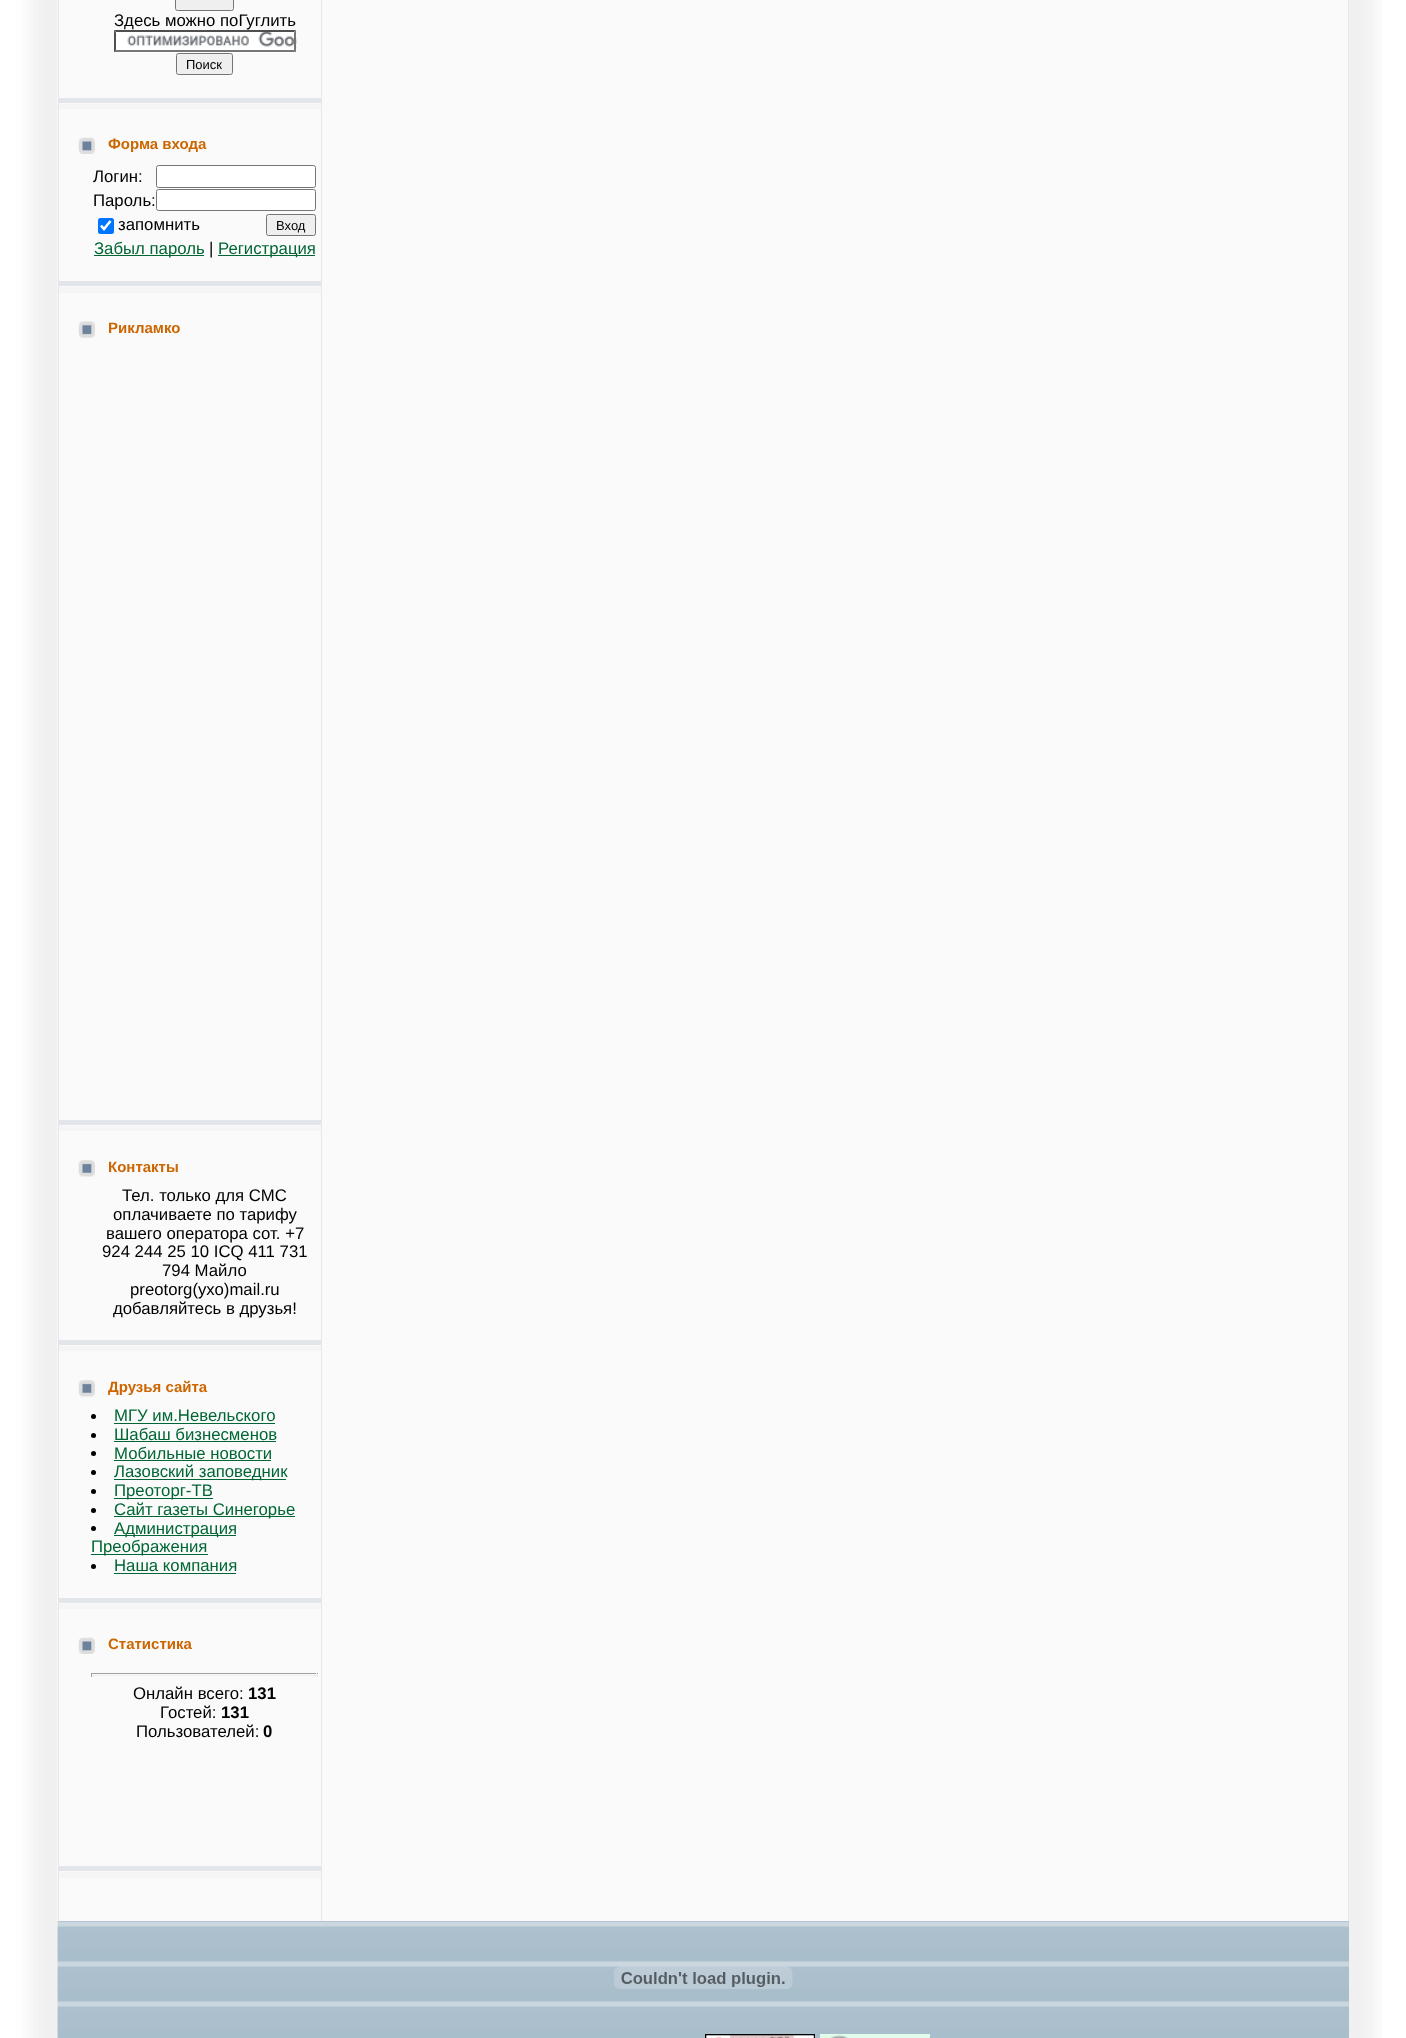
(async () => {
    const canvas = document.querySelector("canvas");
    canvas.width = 1406;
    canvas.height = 2038;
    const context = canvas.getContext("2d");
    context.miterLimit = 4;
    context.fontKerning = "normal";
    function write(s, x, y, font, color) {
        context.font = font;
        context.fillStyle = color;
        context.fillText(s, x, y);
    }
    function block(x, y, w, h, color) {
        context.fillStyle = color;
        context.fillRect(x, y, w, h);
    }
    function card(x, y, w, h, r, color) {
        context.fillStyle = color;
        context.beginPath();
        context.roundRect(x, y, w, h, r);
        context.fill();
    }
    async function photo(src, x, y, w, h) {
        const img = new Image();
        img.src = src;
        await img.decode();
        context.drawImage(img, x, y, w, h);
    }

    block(0, 0, 1406, 2038, "rgb(255, 255, 255)");
    await photo("media/1.png", 0, 0, 58, 2038);
    block(59, 0, 1289, 1921, "rgb(250, 250, 250)");
    block(1348, 0, 1, 1921, "rgb(229, 231, 234)");
    block(58, 0, 1, 1921, "rgb(229, 231, 234)");
    block(321, 0, 1, 1921, "rgb(229, 231, 234)");
    context.fillStyle = "rgb(239, 239, 239)";
    context.beginPath();
    context.roundRect(175.5, -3.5, 58, 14, 2);
    context.fill();
    context.strokeStyle = "rgb(118, 118, 118)";
    context.stroke();
    write("Здесь можно поГуглить", 114, 26, "16.75px Liberation Sans", "rgb(0, 0, 0)");
    block(114, 30, 182, 23, "rgb(255, 255, 255)");
    await photo("media/2.png", 127, 32, 170, 17);
    context.fillStyle = "rgb(79, 79, 79)";
    context.beginPath();
    context.moveTo(114, 30);
    context.lineTo(296, 30);
    context.lineTo(294, 32);
    context.lineTo(116, 32);
    context.closePath();
    context.fill();
    context.fillStyle = "rgb(118, 118, 118)";
    context.beginPath();
    context.moveTo(296, 30);
    context.lineTo(296, 52.5);
    context.lineTo(294, 50);
    context.lineTo(294, 32.5);
    context.closePath();
    context.fill();
    context.beginPath();
    context.moveTo(296, 52);
    context.lineTo(114, 52);
    context.lineTo(116, 50);
    context.lineTo(294, 50);
    context.closePath();
    context.fill();
    context.fillStyle = "rgb(79, 79, 79)";
    context.beginPath();
    context.moveTo(114, 52.5);
    context.lineTo(114, 30);
    context.lineTo(116, 32.5);
    context.lineTo(116, 50);
    context.closePath();
    context.fill();
    context.fillStyle = "rgb(239, 239, 239)";
    context.beginPath();
    context.roundRect(176.5, 53.5, 56, 21, 2);
    context.fill();
    context.stroke();
    write("Поиск", 186, 69, "13px Liberation Sans", "rgb(0, 0, 0)");
    block(59, 98, 262, 5, "rgb(226, 230, 234)");
    block(59, 104, 262, 5, "rgb(245, 245, 245)");
    await photo("media/3.png", 78, 137, 17, 17);
    write("Форма входа", 108, 149, "bold 15px Liberation Sans", "rgb(204, 102, 0)");
    write("Логин:", 93, 182, "16.75px Liberation Sans", "rgb(0, 0, 0)");
    context.fillStyle = "rgb(255, 255, 255)";
    context.beginPath();
    context.roundRect(156.5, 165.5, 159, 22, 2);
    context.fill();
    context.stroke();
    write("Пароль:", 93, 206, "16.75px Liberation Sans", "rgb(0, 0, 0)");
    context.fillStyle = "rgb(255, 255, 255)";
    context.beginPath();
    context.roundRect(156.5, 189.5, 159, 21, 2);
    context.fill();
    context.stroke();
    card(98, 218, 16, 16, 2.5, "rgb(0, 117, 255)");
    context.beginPath();
    context.moveTo(101, 225.5);
    context.lineTo(104, 229);
    context.lineTo(110.5, 221);
    context.strokeStyle = "rgb(255, 255, 255)";
    context.lineWidth = 2.6;
    context.stroke();
    write("запомнить", 118, 230, "16.75px Liberation Sans", "rgb(0, 0, 0)");
    context.fillStyle = "rgb(239, 239, 239)";
    context.beginPath();
    context.roundRect(266.5, 214.5, 49, 21, 2);
    context.fill();
    context.strokeStyle = "rgb(118, 118, 118)";
    context.lineWidth = 1;
    context.stroke();
    write("Вход", 276, 230, "13px Liberation Sans", "rgb(0, 0, 0)");
    block(94, 255, 110, 1, "rgb(0, 102, 51)");
    write("Забыл пароль", 94, 254, "16.75px Liberation Sans", "rgb(0, 102, 51)");
    write("|", 209, 254, "16.75px Liberation Sans", "rgb(0, 0, 0)");
    block(218, 255, 97, 1, "rgb(0, 102, 51)");
    write("Регистрация", 218, 254, "16.75px Liberation Sans", "rgb(0, 102, 51)");
    block(59, 281, 262, 5, "rgb(226, 230, 234)");
    block(59, 287, 262, 6, "rgb(245, 245, 245)");
    await photo("media/4.png", 78, 321, 17, 17);
    write("Рикламко", 108, 333, "bold 15px Liberation Sans", "rgb(204, 102, 0)");
    block(59, 1120, 262, 5, "rgb(226, 230, 234)");
    block(59, 1126, 262, 5, "rgb(245, 245, 245)");
    await photo("media/5.png", 78, 1160, 17, 17);
    write("Контакты", 108, 1172, "bold 15px Liberation Sans", "rgb(204, 102, 0)");
    write("Тел. только для СМС", 122, 1201, "16.75px Liberation Sans", "rgb(0, 0, 0)");
    write("оплачиваете по тарифу", 113, 1220, "16.75px Liberation Sans", "rgb(0, 0, 0)");
    write("вашего оператора сот. +7", 106, 1239, "16.75px Liberation Sans", "rgb(0, 0, 0)");
    write("924 244 25 10 ICQ 411 731", 102, 1257, "16.75px Liberation Sans", "rgb(0, 0, 0)");
    write("794 Майло", 162, 1276, "16.75px Liberation Sans", "rgb(0, 0, 0)");
    write("preotorg(ухо)mail.ru", 130, 1295, "16.75px Liberation Sans", "rgb(0, 0, 0)");
    write("добавляйтесь в друзья!", 113, 1314, "16.75px Liberation Sans", "rgb(0, 0, 0)");
    block(59, 1340, 262, 5, "rgb(226, 230, 234)");
    block(59, 1346, 262, 5, "rgb(245, 245, 245)");
    await photo("media/5.png", 78, 1380, 17, 17);
    write("Друзья сайта", 108, 1392, "bold 15px Liberation Sans", "rgb(204, 102, 0)");
    context.fillStyle = "rgb(0, 0, 0)";
    context.beginPath();
    context.arc(93.5, 1416.5, 2.5, 0, Math.PI * 2);
    context.fill();
    write("МГУ им.Невельского", 114, 1421, "16.75px Liberation Sans", "rgb(0, 102, 51)");
    block(114, 1423, 161, 1, "rgb(0, 102, 51)");
    context.fillStyle = "rgb(0, 0, 0)";
    context.beginPath();
    context.arc(93.5, 1435.5, 2.5, 0, Math.PI * 2);
    context.fill();
    write("Шабаш бизнесменов", 114, 1440, "16.75px Liberation Sans", "rgb(0, 102, 51)");
    block(114, 1441, 162, 1, "rgb(0, 102, 51)");
    context.fillStyle = "rgb(0, 0, 0)";
    context.beginPath();
    context.arc(93.5, 1453.5, 2.5, 0, Math.PI * 2);
    context.fill();
    write("Мобильные новости", 114, 1459, "16.75px Liberation Sans", "rgb(0, 102, 51)");
    block(114, 1460, 157, 1, "rgb(0, 102, 51)");
    context.fillStyle = "rgb(0, 0, 0)";
    context.beginPath();
    context.arc(93.5, 1472.5, 2.5, 0, Math.PI * 2);
    context.fill();
    block(114, 1479, 172, 1, "rgb(0, 102, 51)");
    write("Лазовский заповедник", 114, 1477, "16.75px Liberation Sans", "rgb(0, 102, 51)");
    context.fillStyle = "rgb(0, 0, 0)";
    context.beginPath();
    context.arc(93.5, 1491.5, 2.5, 0, Math.PI * 2);
    context.fill();
    block(114, 1498, 99, 1, "rgb(0, 102, 51)");
    write("Преоторг-ТВ", 114, 1496, "16.75px Liberation Sans", "rgb(0, 102, 51)");
    context.fillStyle = "rgb(0, 0, 0)";
    context.beginPath();
    context.arc(93.5, 1510.5, 2.5, 0, Math.PI * 2);
    context.fill();
    block(114, 1516, 181, 1, "rgb(0, 102, 51)");
    write("Сайт газеты Синегорье", 114, 1515, "16.75px Liberation Sans", "rgb(0, 102, 51)");
    context.fillStyle = "rgb(0, 0, 0)";
    context.beginPath();
    context.arc(93.5, 1528.5, 2.5, 0, Math.PI * 2);
    context.fill();
    block(114, 1535, 122, 1, "rgb(0, 102, 51)");
    write("Администрация", 114, 1534, "16.75px Liberation Sans", "rgb(0, 102, 51)");
    block(91, 1554, 117, 1, "rgb(0, 102, 51)");
    write("Преображения", 91, 1552, "16.75px Liberation Sans", "rgb(0, 102, 51)");
    context.fillStyle = "rgb(0, 0, 0)";
    context.beginPath();
    context.arc(93.5, 1566.5, 2.5, 0, Math.PI * 2);
    context.fill();
    write("Наша компания", 114, 1571, "16.75px Liberation Sans", "rgb(0, 102, 51)");
    block(114, 1573, 122, 1, "rgb(0, 102, 51)");
    block(59, 1598, 262, 5, "rgb(226, 230, 234)");
    block(59, 1604, 262, 5, "rgb(245, 245, 245)");
    await photo("media/3.png", 78, 1637, 17, 17);
    write("Статистика", 108, 1649, "bold 15px Liberation Sans", "rgb(204, 102, 0)");
    block(91, 1673, 227, 1, "rgb(159, 159, 159)");
    block(316, 1673, 1, 4, "rgb(238, 238, 238)");
    block(91, 1675, 227, 1, "rgb(238, 238, 238)");
    block(91, 1673, 1, 4, "rgb(159, 159, 159)");
    write("Онлайн всего:", 133, 1699, "16.75px Liberation Sans", "rgb(0, 0, 0)");
    write("131", 248, 1699, "bold 16.75px Liberation Sans", "rgb(0, 0, 0)");
    write("Гостей:", 160, 1718, "16.75px Liberation Sans", "rgb(0, 0, 0)");
    write("131", 221, 1718, "bold 16.75px Liberation Sans", "rgb(0, 0, 0)");
    write("Пользователей:", 136, 1737, "16.75px Liberation Sans", "rgb(0, 0, 0)");
    write("0", 263, 1737, "bold 16.75px Liberation Sans", "rgb(0, 0, 0)");
    block(59, 1866, 262, 5, "rgb(226, 230, 234)");
    block(59, 1872, 262, 6, "rgb(245, 245, 245)");
    await photo("media/6.png", 1348, 0, 34, 2038);
    block(58, 1921, 1291, 117, "rgb(171, 191, 204)");
    await photo("media/7.png", 57, 1921, 1292, 117);
    await photo("media/8.png", 614, 1966, 179, 23);
    await photo("media/9.png", 705, 2034, 110, 4);
    await photo("media/10.png", 820, 2034, 110, 4);
})();
